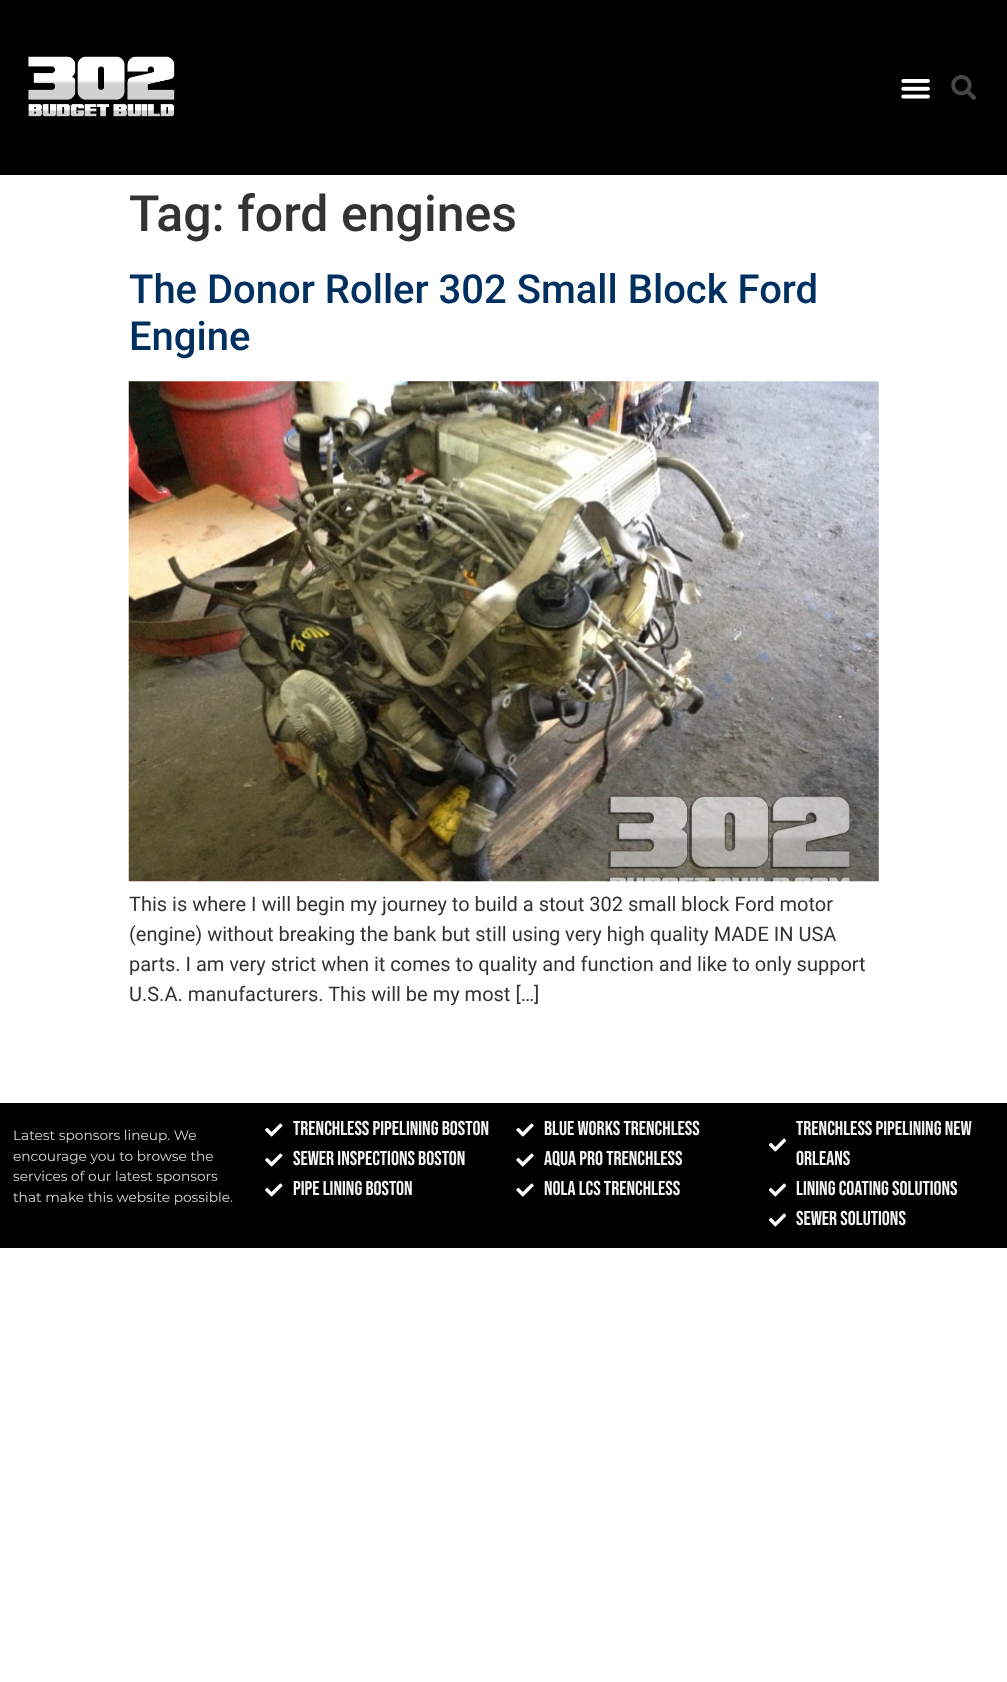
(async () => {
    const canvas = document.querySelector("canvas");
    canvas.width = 1007;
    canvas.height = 1682;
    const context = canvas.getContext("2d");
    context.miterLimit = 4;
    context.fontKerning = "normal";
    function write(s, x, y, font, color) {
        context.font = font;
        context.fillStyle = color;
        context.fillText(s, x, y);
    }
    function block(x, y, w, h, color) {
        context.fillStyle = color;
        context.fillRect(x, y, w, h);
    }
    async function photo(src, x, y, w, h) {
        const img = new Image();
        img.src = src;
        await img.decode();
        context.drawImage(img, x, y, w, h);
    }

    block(0, 0, 1007, 1682, "rgb(255, 255, 255)");
    block(0, 0, 1007, 175, "rgb(0, 0, 0)");
    await photo("media/1.png", 28, 56, 147, 61);
    await photo("media/2.png", 901, 79, 29, 20);
    await photo("media/3.png", 951, 75, 25, 25);
    write("Tag: ford engines", 129, 231, "500 50px Roboto", "rgb(51, 51, 51)");
    write("The Donor Roller 302 Small Block Ford", 129, 303, "500 40px Roboto", "rgb(0, 48, 96)");
    write("Engine", 129, 350, "500 40px Roboto", "rgb(0, 48, 96)");
    await photo("media/4.png", 128, 381, 751, 501);
    write("This is where I will begin my journey to build a stout 302 small block Ford motor", 129, 911, "20px Roboto", "rgb(51, 51, 51)");
    write("(engine) without breaking the bank but still using very high quality MADE IN USA", 129, 941, "20px Roboto", "rgb(51, 51, 51)");
    write("parts. I am very strict when it comes to quality and function and like to only support", 129, 971, "20px Roboto", "rgb(51, 51, 51)");
    write("U.S.A. manufacturers. This will be my most […]", 129, 1001, "20px Roboto", "rgb(51, 51, 51)");
    block(0, 1103, 1007, 145, "rgb(0, 0, 0)");
    write("Latest sponsors lineup. We", 13, 1140, "13.75px Montserrat", "rgb(215, 215, 215)");
    write("encourage you to browse the", 13, 1161, "13.75px Montserrat", "rgb(215, 215, 215)");
    write("services of our latest sponsors", 13, 1181, "13.75px Montserrat", "rgb(215, 215, 215)");
    write("that make this website possible.", 13, 1202, "13.75px Montserrat", "rgb(215, 215, 215)");
    await photo("media/5.png", 265, 1123, 18, 14);
    write("Trenchless Pipelining Boston", 293, 1135, "20px Bebas Neue", "rgb(243, 243, 243)");
    await photo("media/5.png", 265, 1153, 18, 14);
    write("Sewer Inspections Boston", 293, 1165, "20px Bebas Neue", "rgb(243, 243, 243)");
    await photo("media/5.png", 265, 1183, 18, 14);
    write("Pipe Lining Boston", 293, 1195, "20px Bebas Neue", "rgb(243, 243, 243)");
    await photo("media/6.png", 516, 1123, 18, 14);
    write("Blue Works Trenchless", 544, 1135, "20px Bebas Neue", "rgb(243, 243, 243)");
    await photo("media/6.png", 516, 1153, 18, 14);
    write("Aqua Pro Trenchless", 544, 1165, "20px Bebas Neue", "rgb(243, 243, 243)");
    await photo("media/6.png", 516, 1183, 18, 14);
    write("NOLA LCS Trenchless", 544, 1195, "20px Bebas Neue", "rgb(243, 243, 243)");
    await photo("media/7.png", 769, 1138, 17, 14);
    write("Trenchless Pipelining New", 796, 1135, "20px Bebas Neue", "rgb(243, 243, 243)");
    write("Orleans", 796, 1165, "20px Bebas Neue", "rgb(243, 243, 243)");
    await photo("media/7.png", 769, 1183, 17, 14);
    write("Lining Coating Solutions", 796, 1195, "20px Bebas Neue", "rgb(243, 243, 243)");
    await photo("media/7.png", 769, 1213, 17, 14);
    write("Sewer Solutions", 796, 1225, "20px Bebas Neue", "rgb(243, 243, 243)");
})();
